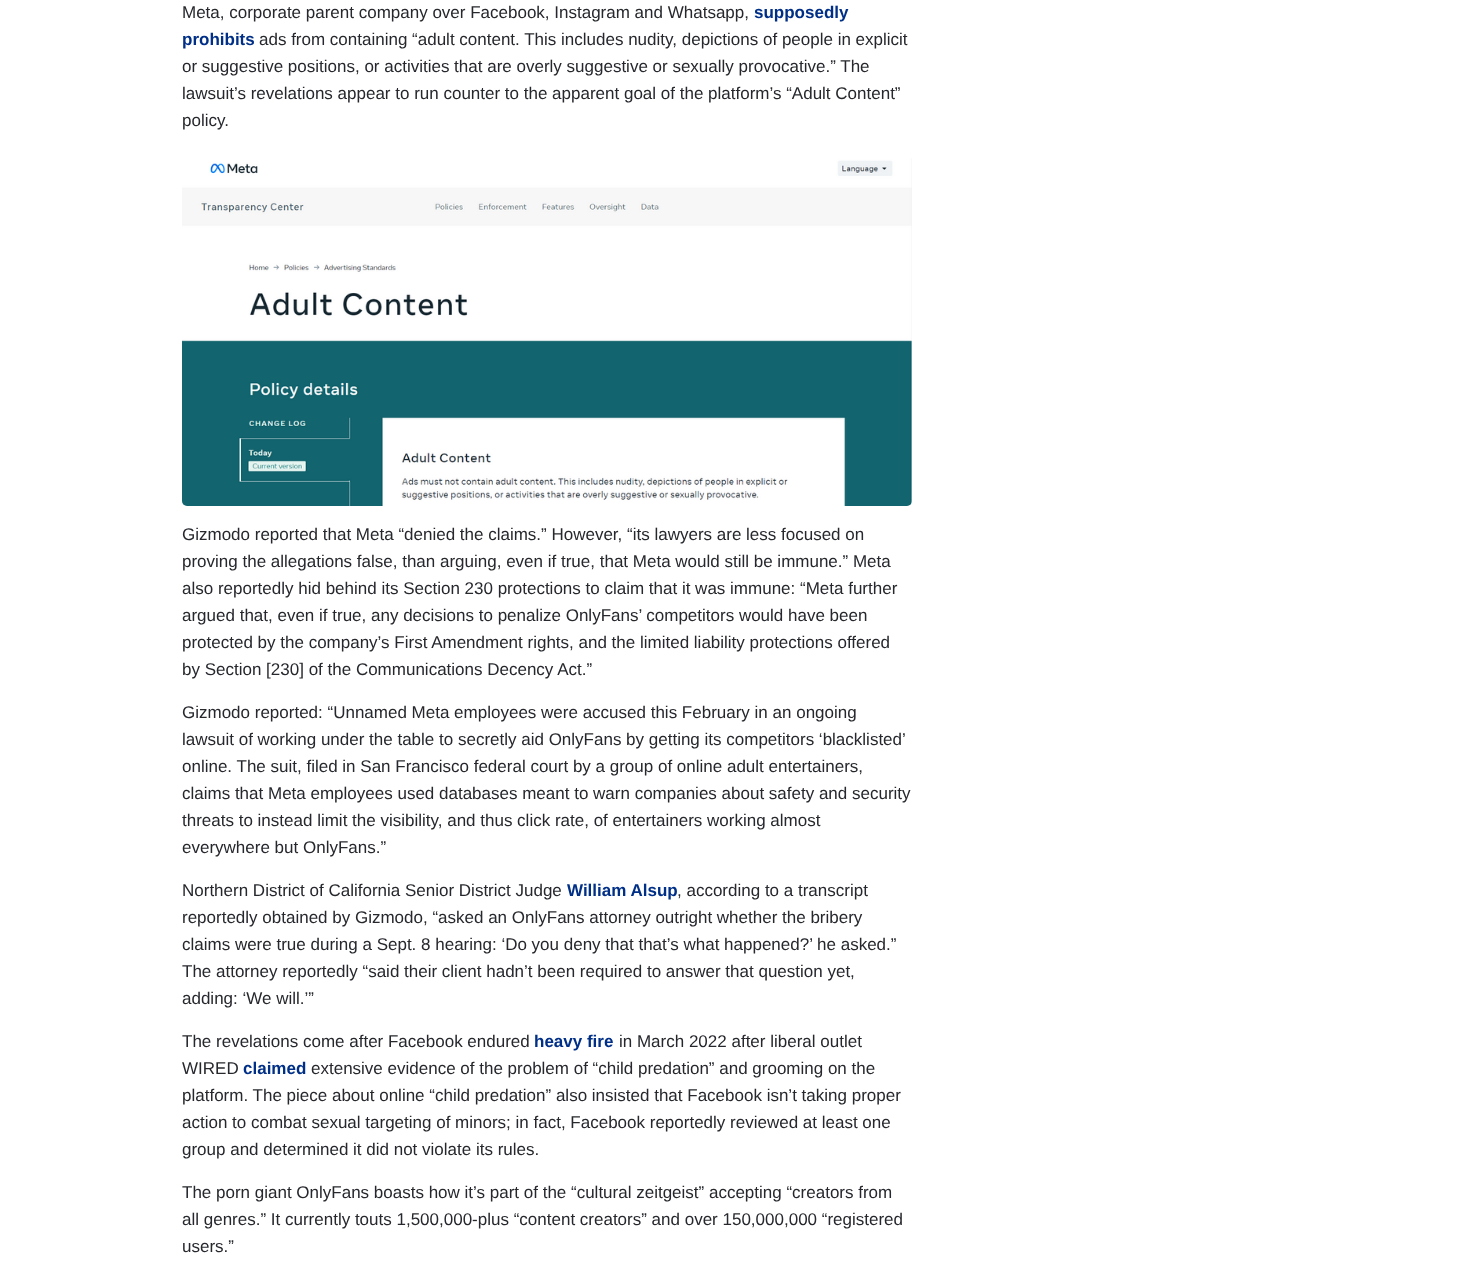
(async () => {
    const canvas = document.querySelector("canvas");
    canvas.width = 1474;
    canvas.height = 1270;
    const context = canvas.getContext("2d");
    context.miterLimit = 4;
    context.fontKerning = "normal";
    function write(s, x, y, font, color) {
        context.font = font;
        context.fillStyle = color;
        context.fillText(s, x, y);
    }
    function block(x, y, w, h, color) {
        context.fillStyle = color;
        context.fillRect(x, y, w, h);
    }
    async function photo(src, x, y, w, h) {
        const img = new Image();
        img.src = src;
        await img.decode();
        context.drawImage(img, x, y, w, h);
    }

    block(0, 0, 1474, 1270, "rgb(255, 255, 255)");
    write("Meta, corporate parent company over Facebook, Instagram and Whatsapp,", 182, 18, "17px Liberation Sans", "rgb(38, 40, 45)");
    write("supposedly", 754, 18, "bold 17px Liberation Sans", "rgb(0, 47, 135)");
    write("prohibits", 182, 45, "bold 17px Liberation Sans", "rgb(0, 47, 135)");
    write("ads from containing “adult content. This includes nudity, depictions of people in explicit", 259, 45, "17px Liberation Sans", "rgb(38, 40, 45)");
    write("or suggestive positions, or activities that are overly suggestive or sexually provocative.” The", 182, 72, "17px Liberation Sans", "rgb(38, 40, 45)");
    write("lawsuit’s revelations appear to run counter to the apparent goal of the platform’s “Adult Content”", 182, 99, "17px Liberation Sans", "rgb(38, 40, 45)");
    write("policy.", 182, 126, "17px Liberation Sans", "rgb(38, 40, 45)");
    await photo("media/1.png", 182, 158, 730, 348);
    write("Gizmodo reported that Meta “denied the claims.” However, “its lawyers are less focused on", 182, 540, "17px Liberation Sans", "rgb(38, 40, 45)");
    write("proving the allegations false, than arguing, even if true, that Meta would still be immune.” Meta", 182, 567, "17px Liberation Sans", "rgb(38, 40, 45)");
    write("also reportedly hid behind its Section 230 protections to claim that it was immune: “Meta further", 182, 594, "17px Liberation Sans", "rgb(38, 40, 45)");
    write("argued that, even if true, any decisions to penalize OnlyFans’ competitors would have been", 182, 621, "17px Liberation Sans", "rgb(38, 40, 45)");
    write("protected by the company’s First Amendment rights, and the limited liability protections offered", 182, 648, "17px Liberation Sans", "rgb(38, 40, 45)");
    write("by Section [230] of the Communications Decency Act.”", 182, 675, "17px Liberation Sans", "rgb(38, 40, 45)");
    write("Gizmodo reported: “Unnamed Meta employees were accused this February in an ongoing", 182, 718, "17px Liberation Sans", "rgb(38, 40, 45)");
    write("lawsuit of working under the table to secretly aid OnlyFans by getting its competitors ‘blacklisted’", 182, 745, "17px Liberation Sans", "rgb(38, 40, 45)");
    write("online. The suit, filed in San Francisco federal court by a group of online adult entertainers,", 182, 772, "17px Liberation Sans", "rgb(38, 40, 45)");
    write("claims that Meta employees used databases meant to warn companies about safety and security", 182, 799, "17px Liberation Sans", "rgb(38, 40, 45)");
    write("threats to instead limit the visibility, and thus click rate, of entertainers working almost", 182, 826, "17px Liberation Sans", "rgb(38, 40, 45)");
    write("everywhere but OnlyFans.”", 182, 853, "17px Liberation Sans", "rgb(38, 40, 45)");
    write("Northern District of California Senior District Judge", 182, 896, "17px Liberation Sans", "rgb(38, 40, 45)");
    write("William Alsup", 567, 896, "bold 17px Liberation Sans", "rgb(0, 47, 135)");
    write(", according to a transcript", 677, 896, "17px Liberation Sans", "rgb(38, 40, 45)");
    write("reportedly obtained by Gizmodo, “asked an OnlyFans attorney outright whether the bribery", 182, 923, "17px Liberation Sans", "rgb(38, 40, 45)");
    write("claims were true during a Sept. 8 hearing: ‘Do you deny that that’s what happened?’ he asked.”", 182, 950, "17px Liberation Sans", "rgb(38, 40, 45)");
    write("The attorney reportedly “said their client hadn’t been required to answer that question yet,", 182, 977, "17px Liberation Sans", "rgb(38, 40, 45)");
    write("adding: ‘We will.’”", 182, 1004, "17px Liberation Sans", "rgb(38, 40, 45)");
    write("The revelations come after Facebook endured", 182, 1047, "17px Liberation Sans", "rgb(38, 40, 45)");
    write("heavy fire", 534, 1047, "bold 17px Liberation Sans", "rgb(0, 47, 135)");
    write("in March 2022 after liberal outlet", 619, 1047, "17px Liberation Sans", "rgb(38, 40, 45)");
    write("WIRED", 182, 1074, "17px Liberation Sans", "rgb(38, 40, 45)");
    write("claimed", 243, 1074, "bold 17px Liberation Sans", "rgb(0, 47, 135)");
    write("extensive evidence of the problem of “child predation” and grooming on the", 311, 1074, "17px Liberation Sans", "rgb(38, 40, 45)");
    write("platform. The piece about online “child predation” also insisted that Facebook isn’t taking proper", 182, 1101, "17px Liberation Sans", "rgb(38, 40, 45)");
    write("action to combat sexual targeting of minors; in fact, Facebook reportedly reviewed at least one", 182, 1128, "17px Liberation Sans", "rgb(38, 40, 45)");
    write("group and determined it did not violate its rules.", 182, 1155, "17px Liberation Sans", "rgb(38, 40, 45)");
    write("The porn giant OnlyFans boasts how it’s part of the “cultural zeitgeist” accepting “creators from", 182, 1198, "17px Liberation Sans", "rgb(38, 40, 45)");
    write("all genres.” It currently touts 1,500,000-plus “content creators” and over 150,000,000 “registered", 182, 1225, "17px Liberation Sans", "rgb(38, 40, 45)");
    write("users.”", 182, 1252, "17px Liberation Sans", "rgb(38, 40, 45)");
})();
